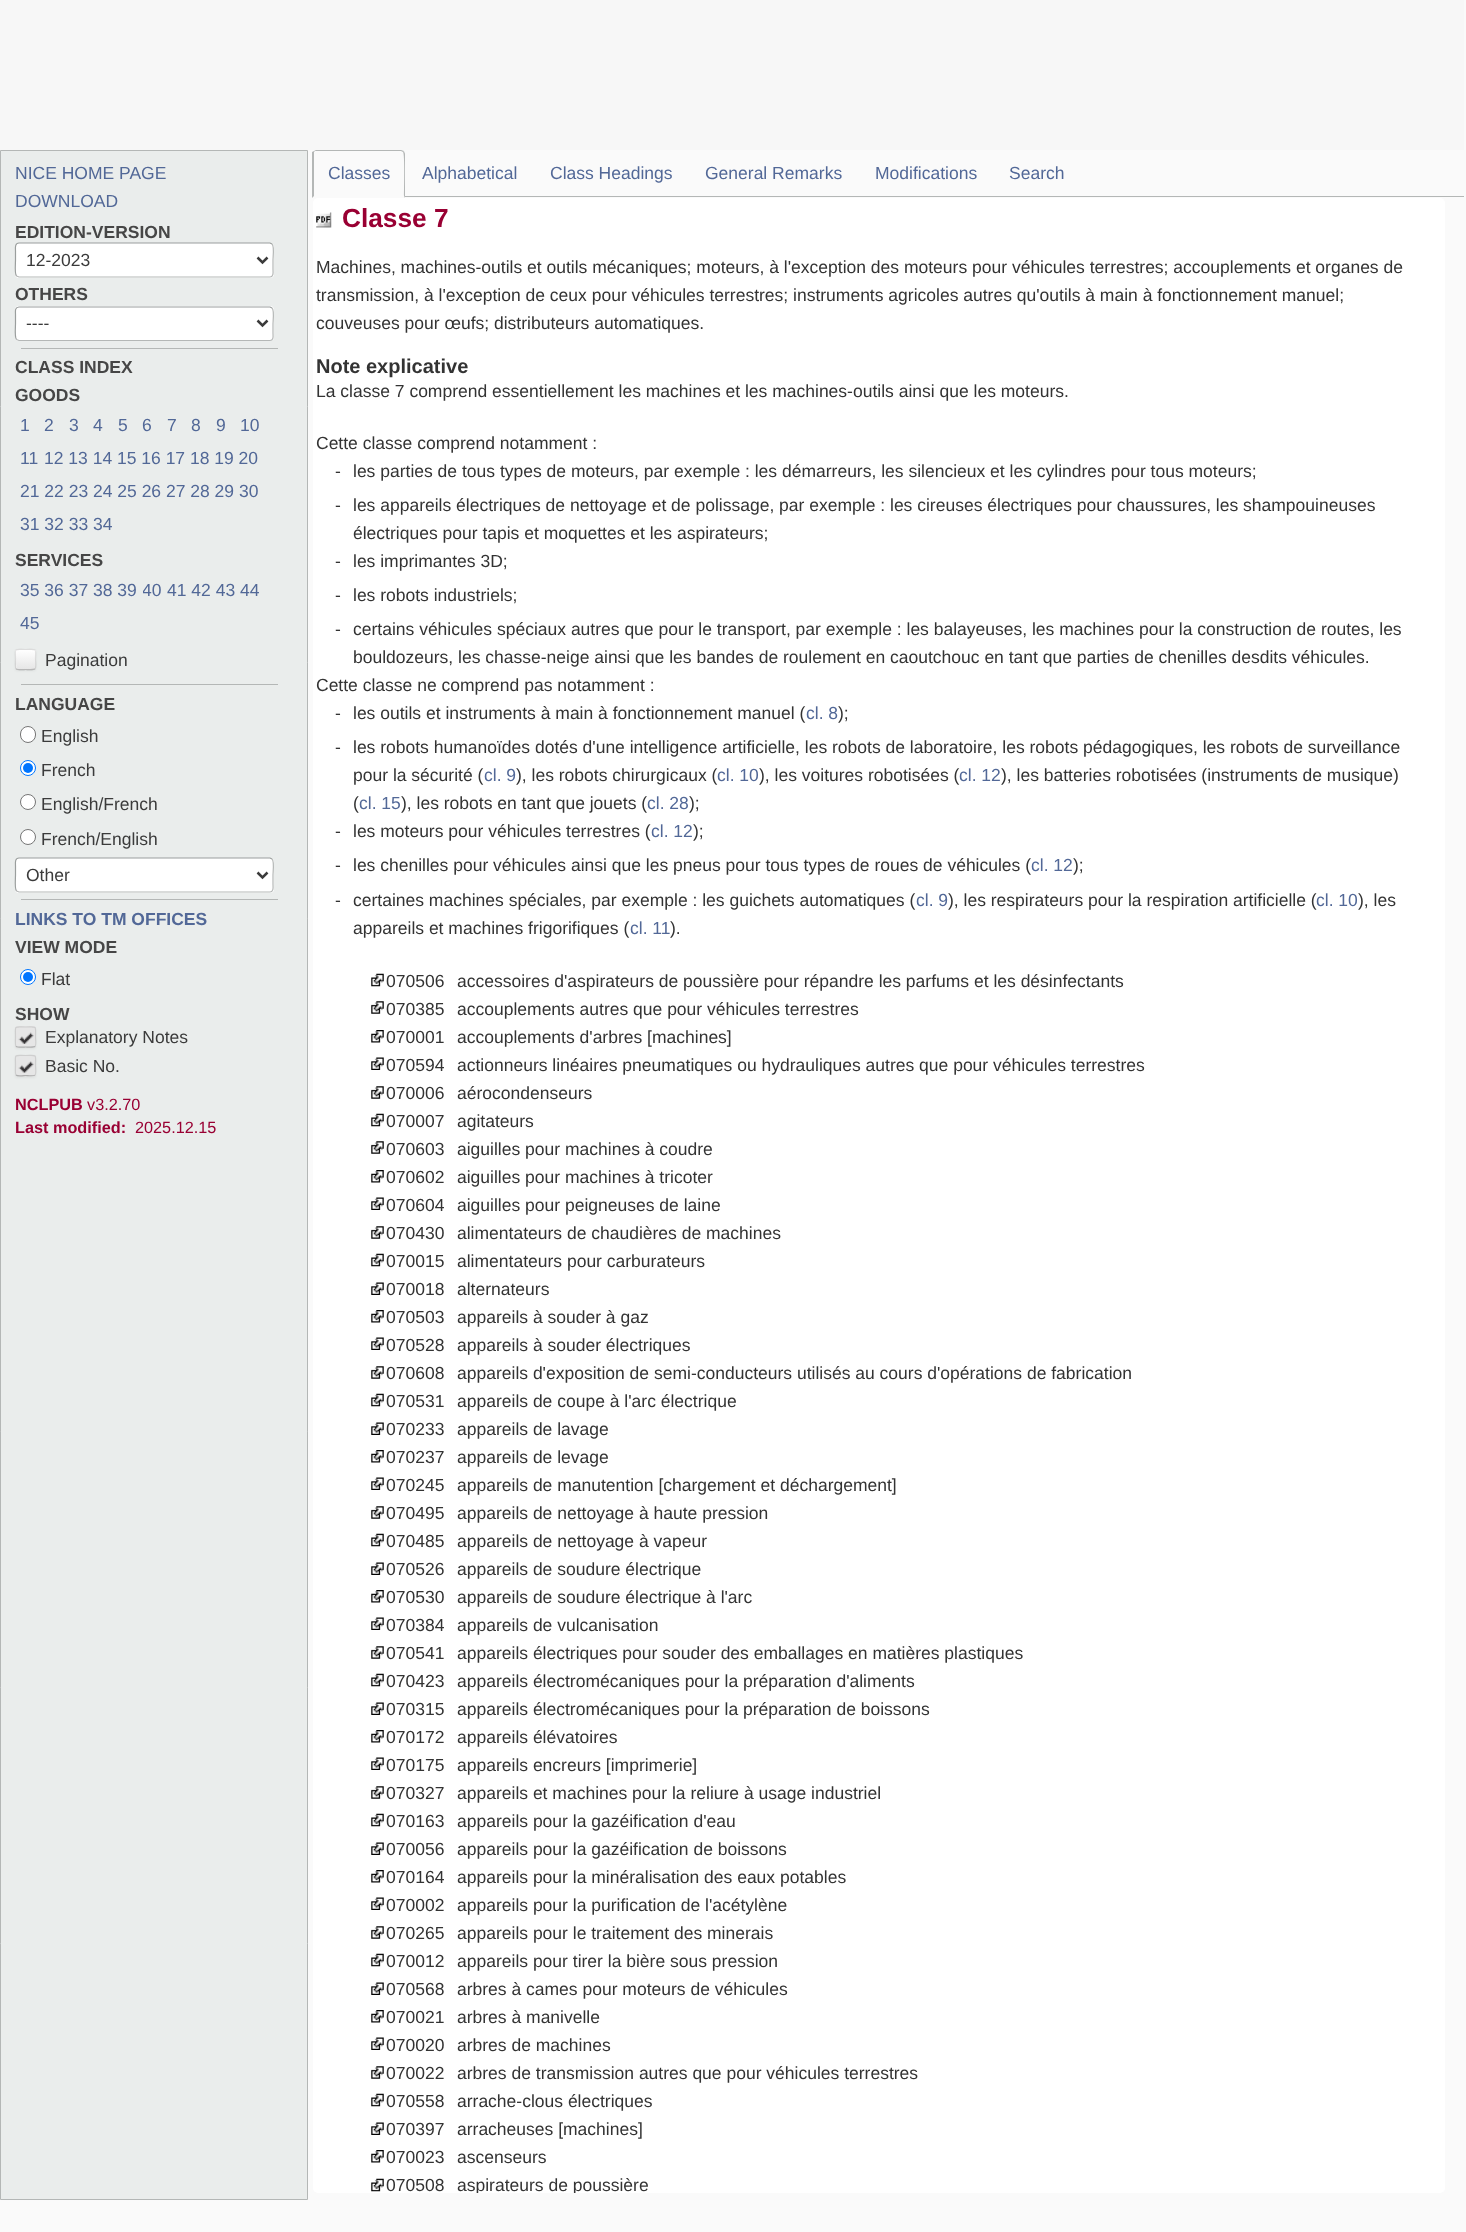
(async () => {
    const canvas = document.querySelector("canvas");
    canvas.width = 1466;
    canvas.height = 2232;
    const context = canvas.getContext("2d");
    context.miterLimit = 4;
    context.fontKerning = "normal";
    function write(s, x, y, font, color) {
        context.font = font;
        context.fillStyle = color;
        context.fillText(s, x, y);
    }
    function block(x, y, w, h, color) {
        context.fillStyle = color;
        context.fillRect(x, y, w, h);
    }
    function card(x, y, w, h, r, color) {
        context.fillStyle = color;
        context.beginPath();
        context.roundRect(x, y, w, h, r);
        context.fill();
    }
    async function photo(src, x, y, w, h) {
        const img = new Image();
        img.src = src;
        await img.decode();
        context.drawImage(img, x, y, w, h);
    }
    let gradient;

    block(0, 0, 1466, 2232, "rgb(250, 250, 250)");
    block(0, 0, 1464, 150, "rgb(247, 247, 247)");
    context.fillStyle = "rgb(234, 237, 236)";
    context.beginPath();
    context.rect(0.5, 150.5, 307, 2049);
    context.fill();
    context.strokeStyle = "rgb(180, 183, 182)";
    context.stroke();
    write("NICE HOME PAGE", 15, 179, "17.5px Liberation Sans", "rgb(82, 104, 151)");
    write("DOWNLOAD", 15, 207, "17.5px Liberation Sans", "rgb(82, 104, 151)");
    write("EDITION-VERSION", 15, 238, "bold 17.5px Liberation Sans", "rgb(70, 70, 70)");
    card(15, 243, 259, 35, 4, "rgb(255, 255, 255)");
    context.beginPath();
    context.moveTo(272, 244);
    context.bezierCurveTo(274.5, 246, 273, 257, 273, 260);
    context.lineTo(273, 269);
    context.bezierCurveTo(273, 271.5, 274, 277, 270, 277);
    context.lineTo(19, 277);
    context.lineTo(16.5, 276);
    context.lineWidth = 1.2;
    context.stroke();
    context.beginPath();
    context.moveTo(16.5, 276);
    context.bezierCurveTo(14.5, 274, 15.5, 263, 15.5, 260);
    context.lineTo(15.5, 251);
    context.bezierCurveTo(15.5, 248.5, 14.5, 243, 19, 243);
    context.lineTo(270, 243);
    context.lineTo(272, 244);
    context.strokeStyle = "rgb(154, 158, 157)";
    context.stroke();
    context.beginPath();
    context.moveTo(257.5, 257.5);
    context.lineTo(262.5, 262.5);
    context.lineTo(267.5, 257.5);
    context.strokeStyle = "rgb(59, 59, 59)";
    context.lineWidth = 2.5;
    context.stroke();
    write("12-2023", 26, 266, "17.5px Liberation Sans", "rgb(59, 59, 59)");
    write("OTHERS", 15, 300, "bold 17.5px Liberation Sans", "rgb(70, 70, 70)");
    card(15, 306, 259, 35, 4, "rgb(255, 255, 255)");
    context.beginPath();
    context.moveTo(272, 308);
    context.bezierCurveTo(274.5, 310, 273, 321, 273, 324);
    context.lineTo(273, 333);
    context.bezierCurveTo(273, 335.5, 274, 340.5, 270, 340.5);
    context.lineTo(19, 340.5);
    context.lineTo(16.5, 339.5);
    context.strokeStyle = "rgb(180, 183, 182)";
    context.lineWidth = 1.2;
    context.stroke();
    context.beginPath();
    context.moveTo(16.5, 339.5);
    context.bezierCurveTo(14.5, 337.5, 15.5, 326.5, 15.5, 324);
    context.lineTo(15.5, 314.5);
    context.bezierCurveTo(15.5, 312, 14.5, 307, 19, 307);
    context.lineTo(270, 307);
    context.lineTo(272, 308);
    context.strokeStyle = "rgb(154, 158, 157)";
    context.stroke();
    context.beginPath();
    context.moveTo(257.5, 320.5);
    context.lineTo(262.5, 325.5);
    context.lineTo(267.5, 320.5);
    context.strokeStyle = "rgb(59, 59, 59)";
    context.lineWidth = 2.5;
    context.stroke();
    write("----", 26, 329, "17.5px Liberation Sans", "rgb(59, 59, 59)");
    block(21, 348, 257, 1, "rgb(180, 183, 182)");
    write("CLASS INDEX", 15, 373, "bold 17.5px Liberation Sans", "rgb(70, 70, 70)");
    write("GOODS", 15, 401, "bold 17.5px Liberation Sans", "rgb(70, 70, 70)");
    write("1", 20, 431, "17.5px Liberation Sans", "rgb(82, 104, 151)");
    write("2", 44, 431, "17.5px Liberation Sans", "rgb(82, 104, 151)");
    write("3", 69, 431, "17.5px Liberation Sans", "rgb(82, 104, 151)");
    write("4", 93, 431, "17.5px Liberation Sans", "rgb(82, 104, 151)");
    write("5", 118, 431, "17.5px Liberation Sans", "rgb(82, 104, 151)");
    write("6", 142, 431, "17.5px Liberation Sans", "rgb(82, 104, 151)");
    write("7", 167, 431, "17.5px Liberation Sans", "rgb(82, 104, 151)");
    write("8", 191, 431, "17.5px Liberation Sans", "rgb(82, 104, 151)");
    write("9", 216, 431, "17.5px Liberation Sans", "rgb(82, 104, 151)");
    write("10", 240, 431, "17.5px Liberation Sans", "rgb(82, 104, 151)");
    write("11", 20, 464, "17.5px Liberation Sans", "rgb(82, 104, 151)");
    write("12 13 14 15 16 17 18 19 20", 44, 464, "17.5px Liberation Sans", "rgb(82, 104, 151)");
    write("21 22 23 24 25 26 27 28 29 30", 20, 497, "17.5px Liberation Sans", "rgb(82, 104, 151)");
    write("31 32 33 34", 20, 530, "17.5px Liberation Sans", "rgb(82, 104, 151)");
    write("SERVICES", 15, 566, "bold 17.5px Liberation Sans", "rgb(70, 70, 70)");
    write("35 36 37 38 39", 20, 596, "17.5px Liberation Sans", "rgb(82, 104, 151)");
    context.save();
    context.beginPath();
    context.rect(143, 576, 18, 29);
    context.clip();
    write("40", 142, 596, "17.5px Liberation Sans", "rgb(82, 104, 151)");
    context.restore();
    write("41 42 43 44", 167, 596, "17.5px Liberation Sans", "rgb(82, 104, 151)");
    write("45", 20, 629, "17.5px Liberation Sans", "rgb(82, 104, 151)");
    context.fillStyle = "rgba(0, 0, 0, 0.05)";
    context.filter = "blur(1px)";
    context.beginPath();
    context.roundRect(15, 650, 21, 21, 2.5);
    context.fill();
    context.filter = "none";
    card(15, 649, 21, 21, 2.5, "rgb(245, 245, 245)");
    context.save();
    context.beginPath();
    context.roundRect(15, 649, 21, 21, 2.5);
    context.clip();
    gradient = context.createLinearGradient(26, 650, 26, 669);
    gradient.addColorStop(0, "rgb(255, 255, 255)");
    gradient.addColorStop(1, "rgb(230, 230, 230)");
    context.fillStyle = gradient;
    context.fillRect(15, 650, 21, 19);
    context.restore();
    context.fillStyle = "rgb(254, 254, 254)";
    context.beginPath();
    context.moveTo(18, 651);
    context.bezierCurveTo(20, 651, 34, 651, 35, 652);
    context.bezierCurveTo(35, 649.5, 34, 650, 31, 650);
    context.lineTo(20, 650);
    context.bezierCurveTo(15, 650, 16, 650, 16, 655);
    context.bezierCurveTo(16, 653, 17, 651, 18, 651);
    context.closePath();
    context.moveTo(16.5, 669);
    context.lineTo(16, 663);
    context.bezierCurveTo(16, 664, 15.5, 668, 16.5, 669);
    context.closePath();
    context.fill("evenodd");
    context.beginPath();
    context.moveTo(35, 669);
    context.bezierCurveTo(34, 670, 27.5, 669.5, 25.5, 669.5);
    context.bezierCurveTo(24, 669.5, 17.5, 670, 16, 669);
    context.strokeStyle = "rgba(0, 0, 0, 0.25)";
    context.lineWidth = 1.2;
    context.stroke();
    context.beginPath();
    context.moveTo(16, 669);
    context.bezierCurveTo(15, 667.5, 15.5, 661, 15.5, 659.5);
    context.bezierCurveTo(15.5, 647.5, 13.5, 649.5, 25.5, 649.5);
    context.bezierCurveTo(37.5, 649.5, 35.5, 647.5, 35.5, 659.5);
    context.bezierCurveTo(35.5, 661, 36.5, 667.5, 35, 669);
    context.strokeStyle = "rgba(0, 0, 0, 0.1)";
    context.stroke();
    write("Pagination", 45, 666, "17.5px Liberation Sans", "rgb(59, 59, 59)");
    block(21, 684, 257, 1, "rgb(180, 183, 182)");
    write("LANGUAGE", 15, 710, "bold 17.5px Liberation Sans", "rgb(70, 70, 70)");
    context.fillStyle = "rgb(255, 255, 255)";
    context.beginPath();
    context.roundRect(20.5, 726.5, 15, 16, 7.5);
    context.fill();
    context.strokeStyle = "rgb(118, 118, 118)";
    context.lineWidth = 1;
    context.stroke();
    write("English", 41, 742, "17.5px Liberation Sans", "rgb(59, 59, 59)");
    context.fillStyle = "rgb(255, 255, 255)";
    context.beginPath();
    context.arc(28, 768, 7.5, 0, Math.PI * 2);
    context.fill();
    context.strokeStyle = "rgb(0, 117, 255)";
    context.stroke();
    context.fillStyle = "rgb(0, 117, 255)";
    context.beginPath();
    context.arc(28, 768, 5, 0, Math.PI * 2);
    context.fill();
    write("French", 41, 776, "17.5px Liberation Sans", "rgb(59, 59, 59)");
    context.fillStyle = "rgb(255, 255, 255)";
    context.beginPath();
    context.arc(28, 802, 7.5, 0, Math.PI * 2);
    context.fill();
    context.strokeStyle = "rgb(118, 118, 118)";
    context.stroke();
    write("English/French", 41, 810, "17.5px Liberation Sans", "rgb(59, 59, 59)");
    context.fillStyle = "rgb(255, 255, 255)";
    context.beginPath();
    context.arc(28, 837, 7.5, 0, Math.PI * 2);
    context.fill();
    context.stroke();
    write("French/English", 41, 845, "17.5px Liberation Sans", "rgb(59, 59, 59)");
    card(15, 858, 259, 35, 4, "rgb(255, 255, 255)");
    context.beginPath();
    context.moveTo(272, 859);
    context.bezierCurveTo(274.5, 861, 273, 872, 273, 875);
    context.lineTo(273, 884);
    context.bezierCurveTo(273, 886.5, 274, 892, 270, 892);
    context.lineTo(19, 892);
    context.lineTo(16.5, 891);
    context.strokeStyle = "rgb(180, 183, 182)";
    context.lineWidth = 1.2;
    context.stroke();
    context.beginPath();
    context.moveTo(16.5, 891);
    context.bezierCurveTo(14.5, 889, 15.5, 878, 15.5, 875);
    context.lineTo(15.5, 866);
    context.bezierCurveTo(15.5, 863.5, 14.5, 858, 19, 858);
    context.lineTo(270, 858);
    context.lineTo(272, 859);
    context.strokeStyle = "rgb(154, 158, 157)";
    context.stroke();
    context.beginPath();
    context.moveTo(257.5, 872.5);
    context.lineTo(262.5, 877.5);
    context.lineTo(267.5, 872.5);
    context.strokeStyle = "rgb(59, 59, 59)";
    context.lineWidth = 2.5;
    context.stroke();
    write("Other", 26, 881, "17.5px Liberation Sans", "rgb(59, 59, 59)");
    block(21, 899, 257, 1, "rgb(180, 183, 182)");
    write("LINKS TO TM OFFICES", 15, 925, "bold 17.5px Liberation Sans", "rgb(82, 104, 151)");
    write("VIEW MODE", 15, 953, "bold 17.5px Liberation Sans", "rgb(70, 70, 70)");
    context.fillStyle = "rgb(255, 255, 255)";
    context.beginPath();
    context.arc(28, 977, 7.5, 0, Math.PI * 2);
    context.fill();
    context.strokeStyle = "rgb(0, 117, 255)";
    context.lineWidth = 1;
    context.stroke();
    context.fillStyle = "rgb(0, 117, 255)";
    context.beginPath();
    context.arc(28, 977, 5, 0, Math.PI * 2);
    context.fill();
    write("Flat", 41, 985, "17.5px Liberation Sans", "rgb(59, 59, 59)");
    write("SHOW", 15, 1020, "bold 17.5px Liberation Sans", "rgb(70, 70, 70)");
    context.fillStyle = "rgba(0, 0, 0, 0.05)";
    context.filter = "blur(1px)";
    context.beginPath();
    context.roundRect(15, 1028, 21, 21, 2.5);
    context.fill();
    context.filter = "none";
    card(15, 1026, 21, 22, 2.5, "rgb(230, 230, 230)");
    context.beginPath();
    context.moveTo(35, 1046.5);
    context.bezierCurveTo(34, 1047.5, 27.5, 1047, 25.5, 1047);
    context.bezierCurveTo(24, 1047, 17.5, 1047.5, 16, 1046.5);
    context.strokeStyle = "rgb(172, 173, 173)";
    context.lineWidth = 1.2;
    context.stroke();
    context.beginPath();
    context.moveTo(16, 1046.5);
    context.bezierCurveTo(15, 1045, 15.5, 1038.5, 15.5, 1037);
    context.bezierCurveTo(15.5, 1025, 13.5, 1027, 25.5, 1027);
    context.bezierCurveTo(37.5, 1027, 35.5, 1025, 35.5, 1037);
    context.bezierCurveTo(35.5, 1038.5, 36.5, 1045, 35, 1046.5);
    context.strokeStyle = "rgba(0, 0, 0, 0.1)";
    context.stroke();
    await photo("media/1.png", 18, 1032, 16, 12);
    write("Explanatory Notes", 45, 1043, "17.5px Liberation Sans", "rgb(59, 59, 59)");
    context.fillStyle = "rgba(0, 0, 0, 0.05)";
    context.filter = "blur(1px)";
    context.beginPath();
    context.roundRect(15, 1056, 21, 22, 2.5);
    context.fill();
    context.filter = "none";
    card(15, 1055, 21, 21, 2.5, "rgb(230, 230, 230)");
    context.beginPath();
    context.moveTo(35, 1075);
    context.bezierCurveTo(34, 1076.5, 27.5, 1075.5, 25.5, 1075.5);
    context.bezierCurveTo(24, 1075.5, 17.5, 1076.5, 16, 1075);
    context.strokeStyle = "rgb(173, 173, 173)";
    context.stroke();
    context.beginPath();
    context.moveTo(16, 1075);
    context.bezierCurveTo(15, 1074, 15.5, 1067.5, 15.5, 1065.5);
    context.bezierCurveTo(15.5, 1053.5, 13.5, 1055.5, 25.5, 1055.5);
    context.bezierCurveTo(37.5, 1055.5, 35.5, 1053.5, 35.5, 1065.5);
    context.bezierCurveTo(35.5, 1067.5, 36.5, 1074, 35, 1075);
    context.strokeStyle = "rgb(207, 207, 207)";
    context.stroke();
    await photo("media/2.png", 18, 1061, 16, 12);
    write("Basic No.", 45, 1072, "17.5px Liberation Sans", "rgb(59, 59, 59)");
    write("NCLPUB", 15, 1110, "bold 16.25px Liberation Sans", "rgb(153, 0, 51)");
    write("v3.2.70", 87, 1110, "16.25px Liberation Sans", "rgb(153, 0, 51)");
    write("Last modified:", 15, 1133, "bold 16.25px Liberation Sans", "rgb(153, 0, 51)");
    write("2025.12.15", 135, 1133, "16.25px Liberation Sans", "rgb(153, 0, 51)");
    block(405, 196, 1059, 1, "rgb(180, 183, 182)");
    context.beginPath();
    context.moveTo(316, 150);
    context.lineTo(314, 151);
    context.lineTo(314, 152);
    context.lineTo(315, 151);
    context.lineTo(401, 151);
    context.lineTo(403, 152);
    context.lineTo(404, 151);
    context.lineTo(401, 150);
    context.closePath();
    context.fill();
    context.beginPath();
    context.moveTo(405, 198);
    context.lineTo(405, 154);
    context.bezierCurveTo(405, 153, 404, 152, 404, 151);
    context.lineTo(403, 152);
    context.bezierCurveTo(405, 154, 404, 191, 404, 196);
    context.closePath();
    context.fill();
    context.beginPath();
    context.moveTo(312, 198);
    context.lineTo(312, 152);
    context.lineTo(314, 151);
    context.lineTo(314, 152);
    context.lineTo(314, 154);
    context.lineTo(314, 196);
    context.closePath();
    context.fill();
    write("Classes", 328, 179, "17.5px Liberation Sans", "rgb(82, 104, 151)");
    write("Alphabetical", 422, 179, "17.5px Liberation Sans", "rgb(82, 104, 151)");
    write("Class Headings", 550, 179, "17.5px Liberation Sans", "rgb(82, 104, 151)");
    write("General Remarks", 705, 179, "17.5px Liberation Sans", "rgb(82, 104, 151)");
    write("Modifications", 875, 179, "17.5px Liberation Sans", "rgb(82, 104, 151)");
    write("Search", 1009, 179, "17.5px Liberation Sans", "rgb(82, 104, 151)");
    card(313, 198, 1132, 1995, 5, "rgb(255, 255, 255)");
    await photo("media/3.png", 316, 212, 16, 16);
    write("Classe 7", 342, 227, "bold 26.25px Liberation Sans", "rgb(153, 0, 51)");
    write("Machines, machines-outils et outils mécaniques; moteurs, à l'exception des moteurs pour véhicules terrestres; accouplements et organes de", 316, 273, "17.5px Liberation Sans", "rgb(51, 51, 51)");
    write("transmission, à l'exception de ceux pour véhicules terrestres; instruments agricoles autres qu'outils à main à fonctionnement manuel;", 316, 301, "17.5px Liberation Sans", "rgb(51, 51, 51)");
    write("couveuses pour œufs; distributeurs automatiques.", 316, 329, "17.5px Liberation Sans", "rgb(51, 51, 51)");
    write("Note explicative", 316, 373, "bold 20px Liberation Sans", "rgb(51, 51, 51)");
    write("La classe 7 comprend essentiellement les machines et les machines-outils ainsi que les moteurs.", 316, 397, "17.5px Liberation Sans", "rgb(51, 51, 51)");
    write("Cette classe comprend notamment :", 316, 449, "17.5px Liberation Sans", "rgb(51, 51, 51)");
    write("-", 335, 477, "17.5px Liberation Sans", "rgb(51, 51, 51)");
    write("les parties de tous types de moteurs, par exemple : les démarreurs, les silencieux et les cylindres pour tous moteurs;", 353, 477, "17.5px Liberation Sans", "rgb(51, 51, 51)");
    write("-", 335, 511, "17.5px Liberation Sans", "rgb(51, 51, 51)");
    write("les appareils électriques de nettoyage et de polissage, par exemple : les cireuses électriques pour chaussures, les shampouineuses", 353, 511, "17.5px Liberation Sans", "rgb(51, 51, 51)");
    write("électriques pour tapis et moquettes et les aspirateurs;", 353, 539, "17.5px Liberation Sans", "rgb(51, 51, 51)");
    write("-", 335, 567, "17.5px Liberation Sans", "rgb(51, 51, 51)");
    write("les imprimantes 3D;", 353, 567, "17.5px Liberation Sans", "rgb(51, 51, 51)");
    write("-", 335, 601, "17.5px Liberation Sans", "rgb(51, 51, 51)");
    write("les robots industriels;", 353, 601, "17.5px Liberation Sans", "rgb(51, 51, 51)");
    write("-", 335, 635, "17.5px Liberation Sans", "rgb(51, 51, 51)");
    write("certains véhicules spéciaux autres que pour le transport, par exemple : les balayeuses, les machines pour la construction de routes, les", 353, 635, "17.5px Liberation Sans", "rgb(51, 51, 51)");
    write("bouldozeurs, les chasse-neige ainsi que les bandes de roulement en caoutchouc en tant que parties de chenilles desdits véhicules.", 353, 663, "17.5px Liberation Sans", "rgb(51, 51, 51)");
    write("Cette classe ne comprend pas notamment :", 316, 691, "17.5px Liberation Sans", "rgb(51, 51, 51)");
    write("-", 335, 719, "17.5px Liberation Sans", "rgb(51, 51, 51)");
    write("les outils et instruments à main à fonctionnement manuel (", 353, 719, "17.5px Liberation Sans", "rgb(51, 51, 51)");
    write("cl. 8", 806, 719, "17.5px Liberation Sans", "rgb(82, 104, 151)");
    write(");", 838, 719, "17.5px Liberation Sans", "rgb(51, 51, 51)");
    write("-", 335, 753, "17.5px Liberation Sans", "rgb(51, 51, 51)");
    write("les robots humanoïdes dotés d'une intelligence artificielle, les robots de laboratoire, les robots pédagogiques, les robots de surveillance", 353, 753, "17.5px Liberation Sans", "rgb(51, 51, 51)");
    write("pour la sécurité (", 353, 781, "17.5px Liberation Sans", "rgb(51, 51, 51)");
    write("cl. 9", 484, 781, "17.5px Liberation Sans", "rgb(82, 104, 151)");
    write("), les robots chirurgicaux (", 516, 781, "17.5px Liberation Sans", "rgb(51, 51, 51)");
    write("cl. 10", 717, 781, "17.5px Liberation Sans", "rgb(82, 104, 151)");
    write("), les voitures robotisées (", 759, 781, "17.5px Liberation Sans", "rgb(51, 51, 51)");
    write("cl. 12", 959, 781, "17.5px Liberation Sans", "rgb(82, 104, 151)");
    write("), les batteries robotisées (instruments de musique)", 1001, 781, "17.5px Liberation Sans", "rgb(51, 51, 51)");
    write("(", 353, 809, "17.5px Liberation Sans", "rgb(51, 51, 51)");
    write("cl. 15", 359, 809, "17.5px Liberation Sans", "rgb(82, 104, 151)");
    write("), les robots en tant que jouets (", 401, 809, "17.5px Liberation Sans", "rgb(51, 51, 51)");
    write("cl. 28", 647, 809, "17.5px Liberation Sans", "rgb(82, 104, 151)");
    write(");", 689, 809, "17.5px Liberation Sans", "rgb(51, 51, 51)");
    write("-", 335, 837, "17.5px Liberation Sans", "rgb(51, 51, 51)");
    write("les moteurs pour véhicules terrestres (", 353, 837, "17.5px Liberation Sans", "rgb(51, 51, 51)");
    write("cl. 12", 651, 837, "17.5px Liberation Sans", "rgb(82, 104, 151)");
    write(");", 693, 837, "17.5px Liberation Sans", "rgb(51, 51, 51)");
    write("-", 335, 871, "17.5px Liberation Sans", "rgb(51, 51, 51)");
    write("les chenilles pour véhicules ainsi que les pneus pour tous types de roues de véhicules (", 353, 871, "17.5px Liberation Sans", "rgb(51, 51, 51)");
    write("cl. 12", 1031, 871, "17.5px Liberation Sans", "rgb(82, 104, 151)");
    write(");", 1073, 871, "17.5px Liberation Sans", "rgb(51, 51, 51)");
    write("-", 335, 906, "17.5px Liberation Sans", "rgb(51, 51, 51)");
    write("certaines machines spéciales, par exemple : les guichets automatiques (", 353, 906, "17.5px Liberation Sans", "rgb(51, 51, 51)");
    write("cl. 9", 916, 906, "17.5px Liberation Sans", "rgb(82, 104, 151)");
    write("), les respirateurs pour la respiration artificielle (", 948, 906, "17.5px Liberation Sans", "rgb(51, 51, 51)");
    write("cl. 10", 1316, 906, "17.5px Liberation Sans", "rgb(82, 104, 151)");
    write("), les", 1358, 906, "17.5px Liberation Sans", "rgb(51, 51, 51)");
    write("appareils et machines frigorifiques (", 353, 934, "17.5px Liberation Sans", "rgb(51, 51, 51)");
    write("cl. 11", 630, 934, "17.5px Liberation Sans", "rgb(82, 104, 151)");
    write(").", 670, 934, "17.5px Liberation Sans", "rgb(51, 51, 51)");
    await photo("media/4.png", 371, 973, 13, 14);
    write("070506", 386, 987, "17.5px Liberation Sans", "rgb(51, 51, 51)");
    write("accessoires d'aspirateurs de poussière pour répandre les parfums et les désinfectants", 457, 987, "17.5px Liberation Sans", "rgb(51, 51, 51)");
    await photo("media/5.png", 371, 1001, 13, 13);
    write("070385", 386, 1015, "17.5px Liberation Sans", "rgb(51, 51, 51)");
    write("accouplements autres que pour véhicules terrestres", 457, 1015, "17.5px Liberation Sans", "rgb(51, 51, 51)");
    await photo("media/6.png", 371, 1030, 13, 13);
    write("070001", 386, 1043, "17.5px Liberation Sans", "rgb(51, 51, 51)");
    write("accouplements d'arbres [machines]", 457, 1043, "17.5px Liberation Sans", "rgb(51, 51, 51)");
    await photo("media/7.png", 371, 1057, 13, 13);
    write("070594", 386, 1071, "17.5px Liberation Sans", "rgb(51, 51, 51)");
    write("actionneurs linéaires pneumatiques ou hydrauliques autres que pour véhicules terrestres", 457, 1071, "17.5px Liberation Sans", "rgb(51, 51, 51)");
    await photo("media/5.png", 371, 1086, 13, 13);
    write("070006", 386, 1099, "17.5px Liberation Sans", "rgb(51, 51, 51)");
    write("aérocondenseurs", 457, 1099, "17.5px Liberation Sans", "rgb(51, 51, 51)");
    await photo("media/4.png", 371, 1113, 13, 14);
    write("070007", 386, 1127, "17.5px Liberation Sans", "rgb(51, 51, 51)");
    write("agitateurs", 457, 1127, "17.5px Liberation Sans", "rgb(51, 51, 51)");
    await photo("media/5.png", 371, 1141, 13, 13);
    write("070603", 386, 1155, "17.5px Liberation Sans", "rgb(51, 51, 51)");
    write("aiguilles pour machines à coudre", 457, 1155, "17.5px Liberation Sans", "rgb(51, 51, 51)");
    await photo("media/8.png", 371, 1170, 13, 13);
    write("070602", 386, 1183, "17.5px Liberation Sans", "rgb(51, 51, 51)");
    write("aiguilles pour machines à tricoter", 457, 1183, "17.5px Liberation Sans", "rgb(51, 51, 51)");
    await photo("media/7.png", 371, 1197, 13, 13);
    write("070604", 386, 1211, "17.5px Liberation Sans", "rgb(51, 51, 51)");
    write("aiguilles pour peigneuses de laine", 457, 1211, "17.5px Liberation Sans", "rgb(51, 51, 51)");
    await photo("media/5.png", 371, 1226, 13, 13);
    write("070430", 386, 1239, "17.5px Liberation Sans", "rgb(51, 51, 51)");
    write("alimentateurs de chaudières de machines", 457, 1239, "17.5px Liberation Sans", "rgb(51, 51, 51)");
    await photo("media/4.png", 371, 1253, 13, 14);
    write("070015", 386, 1267, "17.5px Liberation Sans", "rgb(51, 51, 51)");
    write("alimentateurs pour carburateurs", 457, 1267, "17.5px Liberation Sans", "rgb(51, 51, 51)");
    await photo("media/7.png", 371, 1282, 13, 13);
    write("070018", 386, 1295, "17.5px Liberation Sans", "rgb(51, 51, 51)");
    write("alternateurs", 457, 1295, "17.5px Liberation Sans", "rgb(51, 51, 51)");
    await photo("media/6.png", 371, 1310, 13, 13);
    write("070503", 386, 1323, "17.5px Liberation Sans", "rgb(51, 51, 51)");
    write("appareils à souder à gaz", 457, 1323, "17.5px Liberation Sans", "rgb(51, 51, 51)");
    await photo("media/7.png", 371, 1337, 13, 13);
    write("070528", 386, 1351, "17.5px Liberation Sans", "rgb(51, 51, 51)");
    write("appareils à souder électriques", 457, 1351, "17.5px Liberation Sans", "rgb(51, 51, 51)");
    await photo("media/5.png", 371, 1366, 13, 13);
    write("070608", 386, 1379, "17.5px Liberation Sans", "rgb(51, 51, 51)");
    write("appareils d'exposition de semi-conducteurs utilisés au cours d'opérations de fabrication", 457, 1379, "17.5px Liberation Sans", "rgb(51, 51, 51)");
    await photo("media/4.png", 371, 1393, 13, 14);
    write("070531", 386, 1407, "17.5px Liberation Sans", "rgb(51, 51, 51)");
    write("appareils de coupe à l'arc électrique", 457, 1407, "17.5px Liberation Sans", "rgb(51, 51, 51)");
    await photo("media/7.png", 371, 1422, 13, 13);
    write("070233", 386, 1435, "17.5px Liberation Sans", "rgb(51, 51, 51)");
    write("appareils de lavage", 457, 1435, "17.5px Liberation Sans", "rgb(51, 51, 51)");
    await photo("media/6.png", 371, 1450, 13, 13);
    write("070237", 386, 1463, "17.5px Liberation Sans", "rgb(51, 51, 51)");
    write("appareils de levage", 457, 1463, "17.5px Liberation Sans", "rgb(51, 51, 51)");
    await photo("media/7.png", 371, 1477, 13, 13);
    write("070245", 386, 1491, "17.5px Liberation Sans", "rgb(51, 51, 51)");
    write("appareils de manutention [chargement et déchargement]", 457, 1491, "17.5px Liberation Sans", "rgb(51, 51, 51)");
    await photo("media/5.png", 371, 1506, 13, 13);
    write("070495", 386, 1519, "17.5px Liberation Sans", "rgb(51, 51, 51)");
    write("appareils de nettoyage à haute pression", 457, 1519, "17.5px Liberation Sans", "rgb(51, 51, 51)");
    await photo("media/4.png", 371, 1533, 13, 14);
    write("070485", 386, 1547, "17.5px Liberation Sans", "rgb(51, 51, 51)");
    write("appareils de nettoyage à vapeur", 457, 1547, "17.5px Liberation Sans", "rgb(51, 51, 51)");
    await photo("media/9.png", 371, 1562, 13, 13);
    write("070526", 386, 1575, "17.5px Liberation Sans", "rgb(51, 51, 51)");
    write("appareils de soudure électrique", 457, 1575, "17.5px Liberation Sans", "rgb(51, 51, 51)");
    await photo("media/6.png", 371, 1590, 13, 13);
    write("070530", 386, 1603, "17.5px Liberation Sans", "rgb(51, 51, 51)");
    write("appareils de soudure électrique à l'arc", 457, 1603, "17.5px Liberation Sans", "rgb(51, 51, 51)");
    await photo("media/7.png", 371, 1617, 13, 13);
    write("070384", 386, 1631, "17.5px Liberation Sans", "rgb(51, 51, 51)");
    write("appareils de vulcanisation", 457, 1631, "17.5px Liberation Sans", "rgb(51, 51, 51)");
    await photo("media/5.png", 371, 1646, 13, 13);
    write("070541", 386, 1659, "17.5px Liberation Sans", "rgb(51, 51, 51)");
    write("appareils électriques pour souder des emballages en matières plastiques", 457, 1659, "17.5px Liberation Sans", "rgb(51, 51, 51)");
    await photo("media/4.png", 371, 1673, 13, 14);
    write("070423", 386, 1687, "17.5px Liberation Sans", "rgb(51, 51, 51)");
    write("appareils électromécaniques pour la préparation d'aliments", 457, 1687, "17.5px Liberation Sans", "rgb(51, 51, 51)");
    await photo("media/7.png", 371, 1702, 13, 13);
    write("070315", 386, 1715, "17.5px Liberation Sans", "rgb(51, 51, 51)");
    write("appareils électromécaniques pour la préparation de boissons", 457, 1715, "17.5px Liberation Sans", "rgb(51, 51, 51)");
    await photo("media/6.png", 371, 1730, 13, 13);
    write("070172", 386, 1743, "17.5px Liberation Sans", "rgb(51, 51, 51)");
    write("appareils élévatoires", 457, 1743, "17.5px Liberation Sans", "rgb(51, 51, 51)");
    await photo("media/7.png", 371, 1757, 13, 13);
    write("070175", 386, 1771, "17.5px Liberation Sans", "rgb(51, 51, 51)");
    write("appareils encreurs [imprimerie]", 457, 1771, "17.5px Liberation Sans", "rgb(51, 51, 51)");
    await photo("media/5.png", 371, 1786, 13, 13);
    write("070327", 386, 1799, "17.5px Liberation Sans", "rgb(51, 51, 51)");
    write("appareils et machines pour la reliure à usage industriel", 457, 1799, "17.5px Liberation Sans", "rgb(51, 51, 51)");
    await photo("media/4.png", 371, 1813, 13, 14);
    write("070163", 386, 1827, "17.5px Liberation Sans", "rgb(51, 51, 51)");
    write("appareils pour la gazéification d'eau", 457, 1827, "17.5px Liberation Sans", "rgb(51, 51, 51)");
    await photo("media/7.png", 371, 1842, 13, 13);
    write("070056", 386, 1855, "17.5px Liberation Sans", "rgb(51, 51, 51)");
    write("appareils pour la gazéification de boissons", 457, 1855, "17.5px Liberation Sans", "rgb(51, 51, 51)");
    await photo("media/6.png", 371, 1870, 13, 13);
    write("070164", 386, 1883, "17.5px Liberation Sans", "rgb(51, 51, 51)");
    write("appareils pour la minéralisation des eaux potables", 457, 1883, "17.5px Liberation Sans", "rgb(51, 51, 51)");
    await photo("media/7.png", 371, 1897, 13, 13);
    write("070002", 386, 1911, "17.5px Liberation Sans", "rgb(51, 51, 51)");
    write("appareils pour la purification de l'acétylène", 457, 1911, "17.5px Liberation Sans", "rgb(51, 51, 51)");
    await photo("media/5.png", 371, 1926, 13, 13);
    write("070265", 386, 1939, "17.5px Liberation Sans", "rgb(51, 51, 51)");
    write("appareils pour le traitement des minerais", 457, 1939, "17.5px Liberation Sans", "rgb(51, 51, 51)");
    await photo("media/4.png", 371, 1953, 13, 14);
    write("070012", 386, 1967, "17.5px Liberation Sans", "rgb(51, 51, 51)");
    write("appareils pour tirer la bière sous pression", 457, 1967, "17.5px Liberation Sans", "rgb(51, 51, 51)");
    await photo("media/7.png", 371, 1982, 13, 13);
    write("070568", 386, 1995, "17.5px Liberation Sans", "rgb(51, 51, 51)");
    write("arbres à cames pour moteurs de véhicules", 457, 1995, "17.5px Liberation Sans", "rgb(51, 51, 51)");
    await photo("media/6.png", 371, 2010, 13, 13);
    write("070021", 386, 2023, "17.5px Liberation Sans", "rgb(51, 51, 51)");
    write("arbres à manivelle", 457, 2023, "17.5px Liberation Sans", "rgb(51, 51, 51)");
    await photo("media/7.png", 371, 2037, 13, 13);
    write("070020", 386, 2051, "17.5px Liberation Sans", "rgb(51, 51, 51)");
    write("arbres de machines", 457, 2051, "17.5px Liberation Sans", "rgb(51, 51, 51)");
    await photo("media/5.png", 371, 2066, 13, 13);
    write("070022", 386, 2079, "17.5px Liberation Sans", "rgb(51, 51, 51)");
    write("arbres de transmission autres que pour véhicules terrestres", 457, 2079, "17.5px Liberation Sans", "rgb(51, 51, 51)");
    await photo("media/4.png", 371, 2093, 13, 14);
    write("070558", 386, 2107, "17.5px Liberation Sans", "rgb(51, 51, 51)");
    write("arrache-clous électriques", 457, 2107, "17.5px Liberation Sans", "rgb(51, 51, 51)");
    await photo("media/7.png", 371, 2122, 13, 13);
    write("070397", 386, 2135, "17.5px Liberation Sans", "rgb(51, 51, 51)");
    write("arracheuses [machines]", 457, 2135, "17.5px Liberation Sans", "rgb(51, 51, 51)");
    await photo("media/6.png", 371, 2150, 13, 13);
    write("070023", 386, 2163, "17.5px Liberation Sans", "rgb(51, 51, 51)");
    write("ascenseurs", 457, 2163, "17.5px Liberation Sans", "rgb(51, 51, 51)");
    await photo("media/4.png", 371, 2178, 13, 14);
    write("070508", 386, 2191, "17.5px Liberation Sans", "rgb(51, 51, 51)");
    context.save();
    context.beginPath();
    context.roundRect(313, 198, 1132, 1995, 5);
    context.clip();
    write("aspirateurs de poussière", 457, 2191, "17.5px Liberation Sans", "rgb(51, 51, 51)");
    context.restore();
})();
